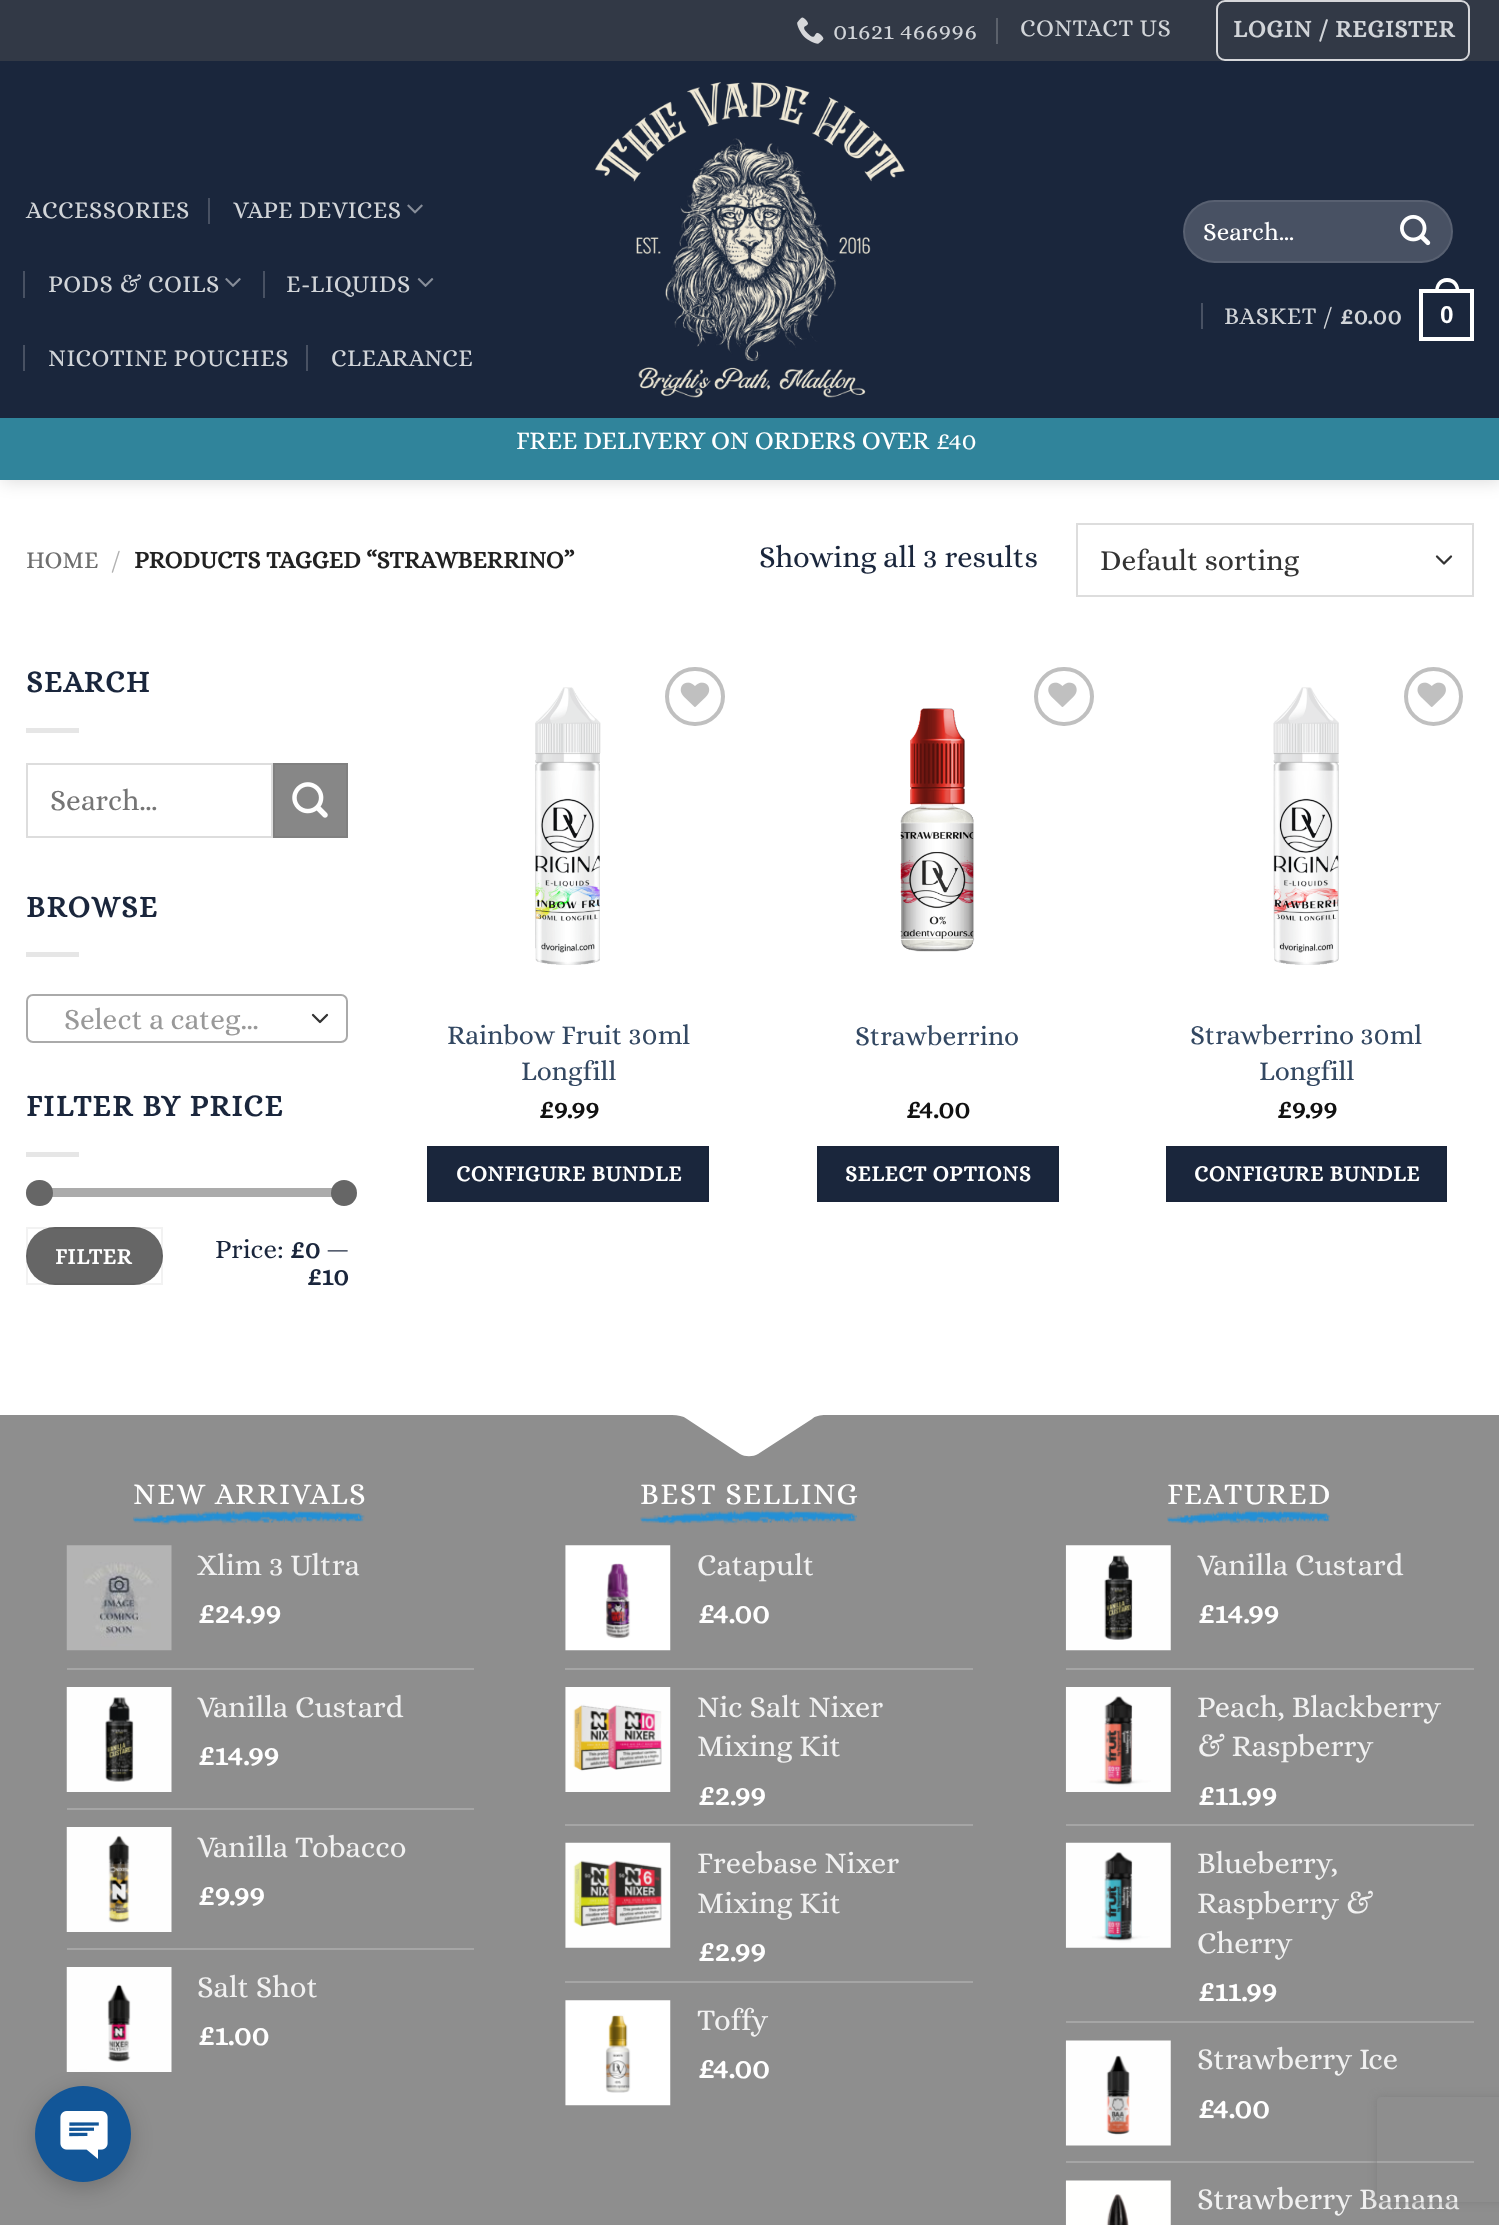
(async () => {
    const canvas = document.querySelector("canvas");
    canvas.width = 1499;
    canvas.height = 2225;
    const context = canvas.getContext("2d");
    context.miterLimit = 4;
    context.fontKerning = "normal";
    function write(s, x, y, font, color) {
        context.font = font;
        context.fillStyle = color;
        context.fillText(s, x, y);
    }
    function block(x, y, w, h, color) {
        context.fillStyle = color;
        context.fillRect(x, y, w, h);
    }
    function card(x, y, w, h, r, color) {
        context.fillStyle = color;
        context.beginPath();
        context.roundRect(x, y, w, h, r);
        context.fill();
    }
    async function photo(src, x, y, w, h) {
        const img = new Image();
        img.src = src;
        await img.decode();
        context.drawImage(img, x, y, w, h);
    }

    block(0, 0, 1499, 2225, "rgb(255, 255, 255)");
    context.fillStyle = "rgba(0, 0, 0, 0.15)";
    context.filter = "blur(9px)";
    context.beginPath();
    context.rect(2, 2, 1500, 479);
    context.fill();
    context.filter = "none";
    block(0, 0, 1499, 61, "rgb(50, 57, 70)");
    await photo("media/1.png", 797, 17, 27, 27);
    context.letterSpacing = "0.5px";
    write("01621 466996", 833, 39, "24.4px Alice", "rgb(209, 212, 216)");
    block(996, 18, 2, 26, "rgb(91, 97, 107)");
    write("CONTACT US", 1020, 36, "24.4px Alice", "rgb(209, 212, 216)");
    context.beginPath();
    context.roundRect(1217, 1, 252, 59, 8);
    context.strokeStyle = "rgb(214, 215, 218)";
    context.lineWidth = 2;
    context.stroke();
    context.letterSpacing = "0.75px";
    write("LOGIN / REGISTER", 1233, 37, "bold 24.4px Alice", "rgb(209, 212, 216)");
    block(0, 61, 1499, 357, "rgb(26, 38, 60)");
    context.letterSpacing = "0.5px";
    write("ACCESSORIES", 26, 218, "24.4px Alice", "rgb(209, 212, 216)");
    block(208, 198, 2, 26, "rgb(72, 81, 99)");
    write("VAPE DEVICES", 233, 218, "24.4px Alice", "rgb(209, 212, 216)");
    await photo("media/2.png", 407, 204, 16, 10);
    block(23, 271, 2, 27, "rgb(72, 81, 99)");
    write("PODS & COILS", 48, 292, "24.4px Alice", "rgb(209, 212, 216)");
    await photo("media/3.png", 225, 278, 16, 9);
    block(263, 271, 2, 27, "rgb(72, 81, 99)");
    write("E-LIQUIDS", 286, 292, "24.4px Alice", "rgb(209, 212, 216)");
    await photo("media/4.png", 417, 278, 17, 9);
    block(23, 345, 2, 26, "rgb(72, 81, 99)");
    write("NICOTINE POUCHES", 48, 366, "24.4px Alice", "rgb(209, 212, 216)");
    block(306, 345, 2, 26, "rgb(72, 81, 99)");
    write("CLEARANCE", 331, 366, "24.4px Alice", "rgb(209, 212, 216)");
    await photo("media/5.png", 595, 82, 310, 316);
    card(1183, 200, 270, 63, 31.5, "rgb(72, 81, 99)");
    context.beginPath();
    context.roundRect(1184, 201, 268, 61, 30.5);
    context.strokeStyle = "rgba(255, 255, 255, 0.09)";
    context.stroke();
    context.letterSpacing = "0px";
    write("Search…", 1203, 240, "25px Alice", "rgb(255, 255, 255)");
    await photo("media/6.png", 1400, 214, 31, 32);
    block(1201, 303, 2, 26, "rgb(72, 81, 99)");
    context.letterSpacing = "0.5px";
    write("BASKET /", 1224, 324, "24.4px Alice", "rgb(209, 212, 216)");
    write("£0.00", 1339, 324, "bold 24.4px Alice", "rgb(209, 212, 216)");
    context.strokeStyle = "rgb(255, 255, 255)";
    context.lineWidth = 4;
    context.strokeRect(1421, 291, 51, 48);
    context.fillStyle = "rgb(255, 255, 255)";
    context.beginPath();
    context.moveTo(1447, 278);
    context.bezierCurveTo(1455.5, 278, 1459.5, 284.5, 1459.5, 292);
    context.lineTo(1435, 292);
    context.bezierCurveTo(1435, 284.5, 1439, 278, 1447, 278);
    context.closePath();
    context.moveTo(1447, 282);
    context.bezierCurveTo(1453.5, 282, 1456, 286.5, 1456, 292);
    context.lineTo(1438.5, 292);
    context.bezierCurveTo(1438.5, 286.5, 1441, 282, 1447, 282);
    context.closePath();
    context.fill("evenodd");
    write("0", 1440, 323, "bold 24.4px Liberation Sans", "rgb(255, 255, 255)");
    block(0, 418, 1499, 62, "rgb(48, 132, 155)");
    context.letterSpacing = "0px";
    write("FREE DELIVERY ON ORDERS OVER £40", 516, 449, "25.9px Alice", "rgb(255, 255, 255)");
    write("HOME", 26, 568, "24.4px Alice", "rgb(110, 110, 110)");
    write("/", 111, 568, "24.4px Alice", "rgb(178, 178, 178)");
    write("PRODUCTS TAGGED “STRAWBERRINO”", 134, 568, "bold 24.4px Alice", "rgb(34, 34, 34)");
    write("Showing all 3 results", 759, 567, "30.5px Alice", "rgb(26, 38, 60)");
    context.beginPath();
    context.moveTo(1437, 556.5);
    context.lineTo(1444, 563.5);
    context.lineTo(1451, 556.5);
    context.strokeStyle = "rgb(51, 51, 51)";
    context.lineWidth = 2.3;
    context.lineCap = "round";
    context.lineJoin = "round";
    context.stroke();
    context.strokeStyle = "rgb(221, 221, 221)";
    context.lineWidth = 2;
    context.lineJoin = "miter";
    context.strokeRect(1077, 524, 396, 72);
    write("Default sorting", 1100, 570, "29.5px Alice", "rgb(51, 51, 51)");
    context.letterSpacing = "1.5px";
    write("SEARCH", 26, 692, "bold 30.5px Alice", "rgb(26, 38, 60)");
    block(26, 728, 53, 5, "rgb(230, 230, 230)");
    context.strokeRect(27, 764, 245, 73);
    context.letterSpacing = "0px";
    write("Search…", 50, 810, "29.5px Alice", "rgb(117, 117, 117)");
    context.fillStyle = "rgb(135, 135, 135)";
    context.beginPath();
    context.rect(274, 764, 73, 73);
    context.fill();
    context.strokeStyle = "rgb(128, 128, 128)";
    context.stroke();
    await photo("media/7.png", 292, 782, 36, 36);
    context.letterSpacing = "1.5px";
    write("BROWSE", 26, 917, "bold 30.5px Alice", "rgb(26, 38, 60)");
    block(26, 952, 53, 5, "rgb(230, 230, 230)");
    context.beginPath();
    context.moveTo(313, 1015);
    context.lineTo(320, 1022);
    context.lineTo(327, 1015);
    context.strokeStyle = "rgb(51, 51, 51)";
    context.lineWidth = 2.3;
    context.lineJoin = "round";
    context.stroke();
    context.beginPath();
    context.roundRect(27, 995, 320, 47, 6);
    context.strokeStyle = "rgb(170, 170, 170)";
    context.lineWidth = 2;
    context.lineJoin = "miter";
    context.stroke();
    context.letterSpacing = "0px";
    write("Select a categ…", 64, 1029, "29.5px Alice", "rgb(153, 153, 153)");
    context.letterSpacing = "1.5px";
    write("FILTER BY PRICE", 26, 1116, "bold 30.5px Alice", "rgb(26, 38, 60)");
    block(26, 1152, 53, 5, "rgb(230, 230, 230)");
    card(26, 1188, 322, 9, 4.5, "rgb(241, 241, 241)");
    card(26, 1188, 322, 9, 4.5, "rgba(102, 102, 102, 0.5)");
    card(26, 1180, 27, 26, 13, "rgb(102, 102, 102)");
    context.beginPath();
    context.arc(344, 1193, 13, 0, Math.PI * 2);
    context.fill();
    card(26, 1227, 137, 58, 29, "rgb(102, 102, 102)");
    context.strokeStyle = "rgba(0, 0, 0, 0.05)";
    context.strokeRect(27, 1228, 135, 56);
    context.letterSpacing = "0.75px";
    write("FILTER", 55, 1264, "bold 22.5px Alice", "rgb(255, 255, 255)");
    context.letterSpacing = "0px";
    write("Price:", 215, 1258, "27px Alice", "rgb(26, 38, 60)");
    write("£0", 289, 1258, "bold 27px Alice", "rgb(26, 38, 60)");
    write("—", 326, 1258, "27px Alice", "rgb(26, 38, 60)");
    write("£10", 306, 1285, "bold 27px Alice", "rgb(26, 38, 60)");
    await photo("media/8.png", 535, 687, 66, 278);
    context.beginPath();
    context.roundRect(667, 669, 56, 55, 27.5);
    context.strokeStyle = "rgb(192, 192, 192)";
    context.lineWidth = 4;
    context.stroke();
    await photo("media/9.png", 680, 682, 30, 25);
    write("Rainbow Fruit 30ml", 447, 1044, "27.5px Alice", "rgb(51, 72, 98)");
    write("Longfill", 521, 1080, "27.5px Alice", "rgb(51, 72, 98)");
    write("£9.99", 538, 1118, "bold 27.5px Alice", "rgb(17, 17, 17)");
    context.fillStyle = "rgb(26, 38, 60)";
    context.beginPath();
    context.rect(428, 1147, 280, 54);
    context.fill();
    context.strokeStyle = "rgb(25, 36, 57)";
    context.lineWidth = 2;
    context.stroke();
    context.letterSpacing = "0.7px";
    write("CONFIGURE BUNDLE", 456, 1181, "bold 22px Alice", "rgb(255, 255, 255)");
    context.beginPath();
    context.roundRect(1036, 669, 56, 55, 27.5);
    context.strokeStyle = "rgb(192, 192, 192)";
    context.lineWidth = 4;
    context.stroke();
    await photo("media/10.png", 1048, 682, 29, 25);
    await photo("media/11.png", 900, 708, 75, 244);
    context.letterSpacing = "0px";
    write("Strawberrino", 855, 1045, "27.5px Alice", "rgb(51, 72, 98)");
    write("£", 905, 1118, "bold 27.5px Alice", "rgb(17, 17, 17)");
    write("4.00", 919, 1118, "bold 27.5px Alice", "rgb(17, 17, 17)");
    context.fillStyle = "rgb(26, 38, 60)";
    context.beginPath();
    context.rect(818, 1147, 240, 54);
    context.fill();
    context.strokeStyle = "rgb(25, 36, 57)";
    context.lineWidth = 2;
    context.stroke();
    context.letterSpacing = "0.7px";
    write("SELECT OPTIONS", 845, 1181, "bold 22px Alice", "rgb(255, 255, 255)");
    await photo("media/12.png", 1273, 687, 66, 278);
    context.beginPath();
    context.arc(1433.5, 696.5, 27.5, 0, Math.PI * 2);
    context.strokeStyle = "rgb(192, 192, 192)";
    context.lineWidth = 4;
    context.stroke();
    await photo("media/13.png", 1417, 682, 29, 25);
    context.letterSpacing = "0px";
    write("Strawberrino 30ml", 1190, 1044, "27.5px Alice", "rgb(51, 72, 98)");
    write("Longfill", 1259, 1080, "27.5px Alice", "rgb(51, 72, 98)");
    write("£9.99", 1276, 1118, "bold 27.5px Alice", "rgb(17, 17, 17)");
    context.fillStyle = "rgb(26, 38, 60)";
    context.beginPath();
    context.rect(1167, 1147, 279, 54);
    context.fill();
    context.strokeStyle = "rgb(25, 36, 57)";
    context.lineWidth = 2;
    context.stroke();
    context.letterSpacing = "0.7px";
    write("CONFIGURE BUNDLE", 1194, 1181, "bold 22px Alice", "rgb(255, 255, 255)");
    block(0, 1415, 1499, 810, "rgb(142, 142, 142)");
    context.fillStyle = "rgb(255, 255, 255)";
    context.beginPath();
    context.moveTo(-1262, 1404);
    context.lineTo(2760, 1404);
    context.lineTo(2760, 1415);
    context.lineTo(826, 1415);
    context.bezierCurveTo(820, 1415, 815, 1416, 812, 1419);
    context.lineTo(758, 1454);
    context.bezierCurveTo(753, 1457, 745, 1457, 740, 1454);
    context.lineTo(687, 1419);
    context.bezierCurveTo(683, 1416, 678, 1415, 672, 1415);
    context.lineTo(-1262, 1415);
    context.closePath();
    context.fill();
    context.letterSpacing = "1.5px";
    write("NEW ARRIVALS", 133, 1504, "30.5px Alice", "rgb(255, 255, 255)");
    await photo("media/14.png", 133, 1510, 232, 15);
    await photo("media/15.png", 66, 1545, 106, 106);
    context.letterSpacing = "0px";
    write("Xlim 3 Ultra", 197, 1575, "30.5px Alice", "rgb(241, 241, 241)");
    write("£24.99", 197, 1623, "bold 30.5px Alice", "rgb(255, 255, 255)");
    block(67, 1668, 407, 2, "rgb(165, 165, 165)");
    await photo("media/16.png", 66, 1687, 106, 105);
    write("Vanilla Custard", 197, 1717, "30.5px Alice", "rgb(241, 241, 241)");
    write("£14.99", 197, 1765, "bold 30.5px Alice", "rgb(255, 255, 255)");
    block(67, 1808, 407, 2, "rgb(165, 165, 165)");
    await photo("media/17.png", 66, 1827, 106, 105);
    write("Vanilla Tobacco", 197, 1857, "30.5px Alice", "rgb(241, 241, 241)");
    write("£9.99", 197, 1905, "bold 30.5px Alice", "rgb(255, 255, 255)");
    block(67, 1948, 407, 2, "rgb(165, 165, 165)");
    await photo("media/18.png", 66, 1967, 106, 105);
    write("Salt Shot", 197, 1997, "30.5px Alice", "rgb(241, 241, 241)");
    write("£1.00", 197, 2045, "bold 30.5px Alice", "rgb(255, 255, 255)");
    context.letterSpacing = "1.5px";
    write("BEST SELLING", 640, 1504, "30.5px Alice", "rgb(255, 255, 255)");
    await photo("media/19.png", 640, 1510, 217, 15);
    await photo("media/20.png", 565, 1545, 106, 106);
    context.letterSpacing = "0px";
    write("Catapult", 697, 1575, "30.5px Alice", "rgb(241, 241, 241)");
    write("£", 697, 1623, "bold 30.5px Alice", "rgb(255, 255, 255)");
    write("4.00", 713, 1623, "bold 30.5px Alice", "rgb(255, 255, 255)");
    block(565, 1668, 408, 2, "rgb(165, 165, 165)");
    await photo("media/21.png", 565, 1687, 106, 105);
    write("Nic Salt Nixer", 697, 1717, "30.5px Alice", "rgb(241, 241, 241)");
    write("Mixing Kit", 697, 1756, "30.5px Alice", "rgb(241, 241, 241)");
    write("£2.99", 697, 1805, "bold 30.5px Alice", "rgb(255, 255, 255)");
    block(565, 1824, 408, 2, "rgb(165, 165, 165)");
    await photo("media/22.png", 565, 1842, 106, 106);
    write("Freebase Nixer", 697, 1873, "30.5px Alice", "rgb(241, 241, 241)");
    write("Mixing Kit", 697, 1913, "30.5px Alice", "rgb(241, 241, 241)");
    write("£2.99", 697, 1961, "bold 30.5px Alice", "rgb(255, 255, 255)");
    block(565, 1981, 408, 2, "rgb(165, 165, 165)");
    await photo("media/23.png", 565, 2000, 106, 106);
    write("Toffy", 697, 2030, "30.5px Alice", "rgb(241, 241, 241)");
    write("£", 697, 2078, "bold 30.5px Alice", "rgb(255, 255, 255)");
    write("4.00", 713, 2078, "bold 30.5px Alice", "rgb(255, 255, 255)");
    context.letterSpacing = "1.5px";
    write("FEATURED", 1167, 1504, "30.5px Alice", "rgb(255, 255, 255)");
    await photo("media/24.png", 1167, 1510, 163, 15);
    await photo("media/25.png", 1065, 1545, 106, 106);
    context.letterSpacing = "0px";
    write("Vanilla Custard", 1197, 1575, "30.5px Alice", "rgb(241, 241, 241)");
    write("£14.99", 1197, 1623, "bold 30.5px Alice", "rgb(255, 255, 255)");
    block(1066, 1668, 408, 2, "rgb(165, 165, 165)");
    await photo("media/26.png", 1065, 1687, 106, 105);
    write("Peach, Blackberry", 1197, 1717, "30.5px Alice", "rgb(241, 241, 241)");
    write("& Raspberry", 1197, 1756, "30.5px Alice", "rgb(241, 241, 241)");
    write("£11.99", 1197, 1805, "bold 30.5px Alice", "rgb(255, 255, 255)");
    block(1066, 1824, 408, 2, "rgb(165, 165, 165)");
    await photo("media/27.png", 1065, 1842, 106, 106);
    write("Blueberry,", 1197, 1873, "30.5px Alice", "rgb(241, 241, 241)");
    write("Raspberry &", 1197, 1913, "30.5px Alice", "rgb(241, 241, 241)");
    write("Cherry", 1197, 1953, "30.5px Alice", "rgb(241, 241, 241)");
    write("£11.99", 1197, 2001, "bold 30.5px Alice", "rgb(255, 255, 255)");
    block(1066, 2021, 408, 2, "rgb(165, 165, 165)");
    await photo("media/28.png", 1065, 2040, 106, 106);
    write("Strawberry Ice", 1197, 2069, "30.5px Alice", "rgb(241, 241, 241)");
    write("£", 1197, 2118, "bold 30.5px Alice", "rgb(255, 255, 255)");
    write("4.00", 1213, 2118, "bold 30.5px Alice", "rgb(255, 255, 255)");
    block(1066, 2161, 408, 2, "rgb(165, 165, 165)");
    await photo("media/29.png", 1065, 2180, 106, 45);
    write("Strawberry Banana", 1197, 2209, "30.5px Alice", "rgb(241, 241, 241)");
    context.fillStyle = "rgba(0, 0, 0, 0.2)";
    context.filter = "blur(10.5px)";
    context.beginPath();
    context.roundRect(35, 2091, 96, 97, 48);
    context.fill();
    context.filter = "none";
    context.fillStyle = "rgb(18, 86, 152)";
    context.beginPath();
    context.arc(83, 2134, 48, 0, Math.PI * 2);
    context.fill();
    await photo("media/30.png", 60, 2111, 48, 48);
    context.save();
    context.beginPath();
    context.moveTo(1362, 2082);
    context.lineTo(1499, 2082);
    context.lineTo(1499, 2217);
    context.lineTo(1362, 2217);
    context.closePath();
    context.moveTo(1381, 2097);
    context.lineTo(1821, 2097);
    context.bezierCurveTo(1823, 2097, 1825, 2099, 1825, 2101);
    context.lineTo(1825, 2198);
    context.bezierCurveTo(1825, 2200, 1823, 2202, 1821, 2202);
    context.lineTo(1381, 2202);
    context.bezierCurveTo(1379, 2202, 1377, 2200, 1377, 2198);
    context.lineTo(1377, 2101);
    context.bezierCurveTo(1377, 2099, 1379, 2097, 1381, 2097);
    context.closePath();
    context.clip("evenodd");
    context.fillStyle = "rgb(128, 128, 128)";
    context.filter = "blur(4.5px)";
    context.beginPath();
    context.roundRect(1377, 2097, 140, 105, 4);
    context.fill();
    context.filter = "none";
    context.restore();
})();
